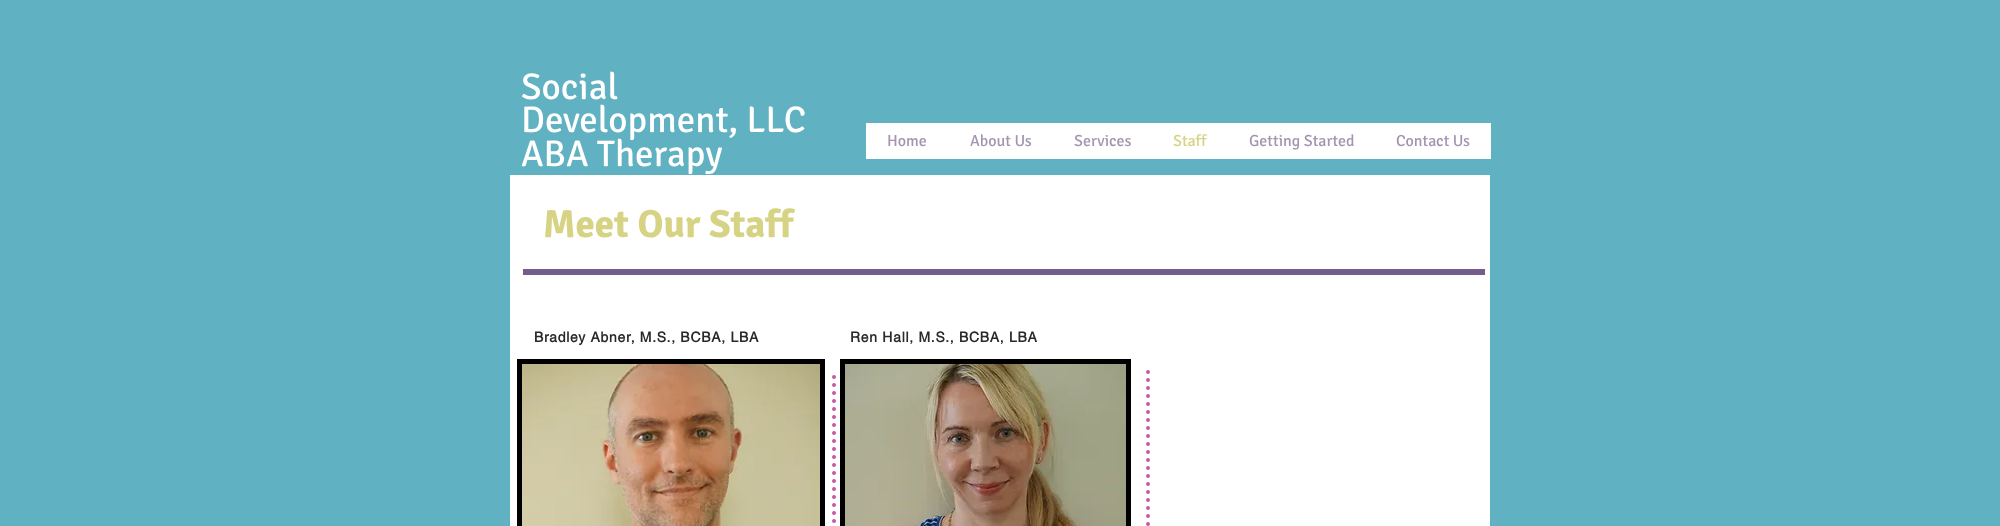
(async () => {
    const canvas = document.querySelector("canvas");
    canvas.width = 2000;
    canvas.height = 526;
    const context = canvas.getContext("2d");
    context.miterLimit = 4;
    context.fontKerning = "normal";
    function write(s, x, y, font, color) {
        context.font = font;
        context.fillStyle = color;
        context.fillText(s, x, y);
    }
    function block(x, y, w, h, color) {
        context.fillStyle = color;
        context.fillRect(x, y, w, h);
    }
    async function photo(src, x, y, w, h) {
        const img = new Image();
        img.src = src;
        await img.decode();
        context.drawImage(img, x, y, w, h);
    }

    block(0, 0, 2000, 526, "rgb(96, 177, 193)");
    write("Social", 521, 99, "37px Signika", "rgb(255, 255, 255)");
    write("Development, LLC", 521, 132, "37px Signika", "rgb(255, 255, 255)");
    write("ABA Therapy", 521, 166, "37px Signika", "rgb(255, 255, 255)");
    block(866, 123, 625, 36, "rgb(255, 255, 255)");
    write("Home", 887, 146, "16px Signika", "rgb(165, 148, 177)");
    write("About Us", 970, 146, "16px Signika", "rgb(165, 148, 177)");
    write("Services", 1074, 146, "16px Signika", "rgb(165, 148, 177)");
    write("Staff", 1173, 146, "16px Signika", "rgb(215, 211, 133)");
    write("Getting Started", 1249, 146, "16px Signika", "rgb(165, 148, 177)");
    write("Contact Us", 1396, 146, "16px Signika", "rgb(165, 148, 177)");
    block(510, 175, 980, 351, "rgb(255, 255, 255)");
    write("Meet Our Staff", 543, 237, "bold 39px Signika", "rgb(215, 211, 133)");
    block(523, 269, 962, 6, "rgb(119, 92, 139)");
    context.letterSpacing = "0.7px";
    write("Bradley Abner, M.S., BCBA, LBA", 534, 342, "bold 14px helvetica", "rgb(41, 41, 41)");
    write("Ren Hall, M.S., BCBA, LBA", 850, 342, "bold 14px helvetica", "rgb(41, 41, 41)");
    block(517, 359, 308, 167, "rgb(0, 0, 0)");
    await photo("media/1.png", 522, 364, 298, 162);
    context.beginPath();
    context.moveTo(834, 377);
    context.lineTo(834, 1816);
    context.strokeStyle = "rgb(198, 90, 165)";
    context.lineWidth = 4;
    context.lineCap = "round";
    context.setLineDash([0, 8]);
    context.stroke();
    block(840, 359, 291, 167, "rgb(0, 0, 0)");
    await photo("media/2.png", 845, 364, 281, 162);
    context.beginPath();
    context.moveTo(1148, 372);
    context.lineTo(1148, 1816);
    context.stroke();
})();
